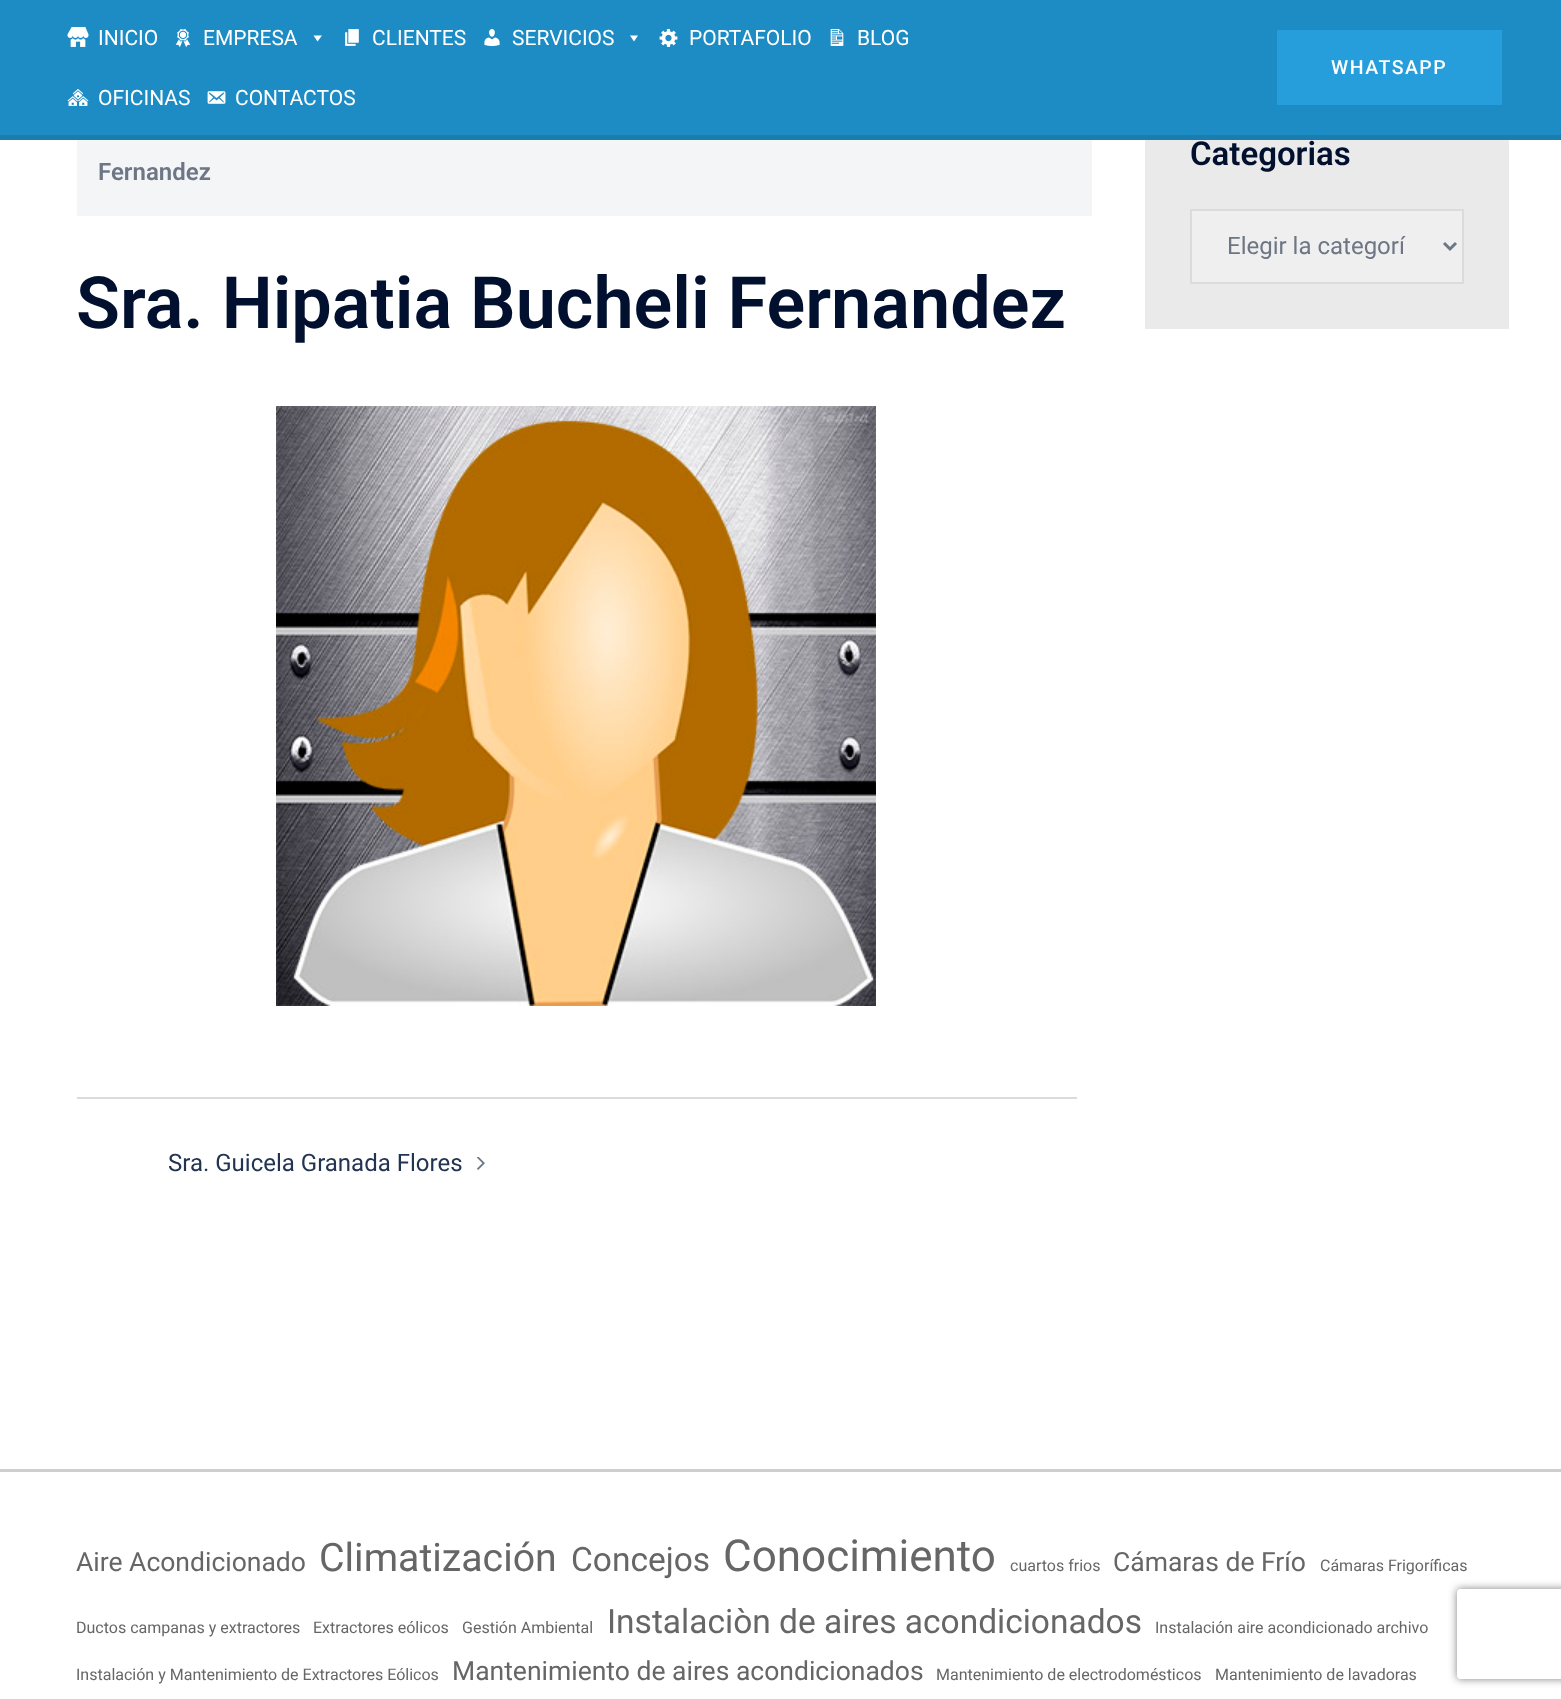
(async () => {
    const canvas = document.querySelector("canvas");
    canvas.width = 1561;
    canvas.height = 1699;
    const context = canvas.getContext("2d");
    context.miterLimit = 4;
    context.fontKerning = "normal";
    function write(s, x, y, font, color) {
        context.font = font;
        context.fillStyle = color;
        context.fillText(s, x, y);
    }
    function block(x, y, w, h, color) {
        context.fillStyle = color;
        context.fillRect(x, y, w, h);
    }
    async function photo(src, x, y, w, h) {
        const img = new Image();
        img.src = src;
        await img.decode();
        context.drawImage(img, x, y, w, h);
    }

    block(0, 0, 1561, 1699, "rgb(255, 255, 255)");
    block(0, 0, 1561, 135, "rgb(29, 140, 196)");
    block(0, 135, 1561, 5, "rgb(26, 125, 174)");
    await photo("media/1.png", 67, 27, 22, 20);
    write("INICIO", 98, 45, "21px Roboto", "rgb(255, 255, 255)");
    await photo("media/2.png", 175, 29, 16, 18);
    write("EMPRESA", 203, 45, "21px Roboto", "rgb(255, 255, 255)");
    context.beginPath();
    context.moveTo(322, 35.5);
    context.lineTo(317.5, 41.5);
    context.lineTo(313.5, 35.5);
    context.closePath();
    context.fill();
    await photo("media/3.png", 345, 29, 14, 17);
    write("CLIENTES", 372, 45, "21px Roboto", "rgb(255, 255, 255)");
    await photo("media/4.png", 484, 29, 16, 18);
    write("SERVICIOS", 512, 45, "21px Roboto", "rgb(255, 255, 255)");
    context.beginPath();
    context.moveTo(638, 35.5);
    context.lineTo(634, 41.5);
    context.lineTo(630, 35.5);
    context.closePath();
    context.fill();
    await photo("media/5.png", 659, 29, 19, 18);
    write("PORTAFOLIO", 689, 45, "21px Roboto", "rgb(255, 255, 255)");
    await photo("media/6.png", 830, 29, 14, 17);
    write("BLOG", 857, 45, "21px Roboto", "rgb(255, 255, 255)");
    await photo("media/7.png", 67, 89, 22, 17);
    write("OFICINAS", 98, 105, "21px Roboto", "rgb(255, 255, 255)");
    await photo("media/8.png", 207, 91, 19, 13);
    write("CONTACTOS", 235, 105, "21px Roboto", "rgb(255, 255, 255)");
    block(1277, 30, 225, 75, "rgb(37, 158, 219)");
    context.letterSpacing = "1.5px";
    write("WHATSAPP", 1331, 74, "500 19.5px Roboto", "rgb(255, 255, 255)");
    block(77, 140, 1015, 76, "rgb(244, 245, 247)");
    context.letterSpacing = "0px";
    write("Fernandez", 98, 180, "600 24px Roboto", "rgb(109, 118, 133)");
    write("Sra. Hipatia Bucheli Fernandez", 76, 328, "600 72px Roboto", "rgb(0, 16, 46)");
    await photo("media/9.png", 276, 406, 600, 600);
    block(77, 1097, 1000, 2, "rgb(219, 219, 219)");
    write("Sra. Guicela Granada Flores", 168, 1171, "24px Roboto", "rgb(35, 52, 82)");
    await photo("media/10.png", 477, 1157, 8, 13);
    block(1145, 140, 364, 189, "rgb(234, 234, 234)");
    write("Categorias", 1190, 165, "600 33px Roboto", "rgb(0, 16, 46)");
    context.fillStyle = "rgb(239, 239, 239)";
    context.beginPath();
    context.rect(1191, 210, 272, 73);
    context.fill();
    context.strokeStyle = "rgb(219, 219, 219)";
    context.lineWidth = 2;
    context.stroke();
    context.beginPath();
    context.moveTo(1444, 243);
    context.lineTo(1450, 249);
    context.lineTo(1456, 243);
    context.strokeStyle = "rgb(109, 118, 133)";
    context.lineWidth = 3;
    context.stroke();
    write("Elegir la categorí", 1227, 254, "24px Roboto", "rgb(109, 118, 133)");
    block(0, 1469, 1561, 3, "rgb(206, 206, 206)");
    write("Aire Acondicionado", 76, 1571, "26.5px Roboto", "rgb(102, 102, 102)");
    write("Climatización", 319, 1571, "39.25px Roboto", "rgb(102, 102, 102)");
    write("Concejos", 571, 1571, "33.5px Roboto", "rgb(102, 102, 102)");
    write("Conocimiento", 723, 1571, "44px Roboto", "rgb(102, 102, 102)");
    write("cuartos frios", 1010, 1571, "16px Roboto", "rgb(102, 102, 102)");
    write("Cámaras de Frío", 1113, 1571, "26.5px Roboto", "rgb(102, 102, 102)");
    write("Cámaras Frigoríficas", 1320, 1571, "16px Roboto", "rgb(102, 102, 102)");
    write("Ductos campanas y extractores", 76, 1633, "16px Roboto", "rgb(102, 102, 102)");
    write("Extractores eólicos", 313, 1633, "16px Roboto", "rgb(102, 102, 102)");
    write("Gestión Ambiental", 462, 1633, "16px Roboto", "rgb(102, 102, 102)");
    write("Instalaciòn de aires acondicionados", 607, 1633, "33.5px Roboto", "rgb(102, 102, 102)");
    write("Instalación aire acondicionado archivo", 1155, 1633, "16px Roboto", "rgb(102, 102, 102)");
    write("Instalación y Mantenimiento de Extractores Eólicos", 76, 1680, "16px Roboto", "rgb(102, 102, 102)");
    write("Mantenimiento de aires acondicionados", 452, 1680, "26.5px Roboto", "rgb(102, 102, 102)");
    write("Mantenimiento de electrodomésticos", 936, 1680, "16px Roboto", "rgb(102, 102, 102)");
    write("Mantenimiento de lavadoras", 1215, 1680, "16px Roboto", "rgb(102, 102, 102)");
    context.save();
    context.beginPath();
    context.moveTo(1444, 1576);
    context.lineTo(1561, 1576);
    context.lineTo(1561, 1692);
    context.lineTo(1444, 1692);
    context.closePath();
    context.moveTo(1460, 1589);
    context.lineTo(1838, 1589);
    context.bezierCurveTo(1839.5, 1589, 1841, 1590.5, 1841, 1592);
    context.lineTo(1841, 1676);
    context.bezierCurveTo(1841, 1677.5, 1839.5, 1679, 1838, 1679);
    context.lineTo(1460, 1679);
    context.bezierCurveTo(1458.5, 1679, 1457, 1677.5, 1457, 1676);
    context.lineTo(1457, 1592);
    context.bezierCurveTo(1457, 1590.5, 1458.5, 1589, 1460, 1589);
    context.closePath();
    context.clip("evenodd");
    context.fillStyle = "rgb(128, 128, 128)";
    context.filter = "blur(4px)";
    context.beginPath();
    context.roundRect(1457, 1589, 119, 90, 3);
    context.fill();
    context.filter = "none";
    context.restore();
})();
